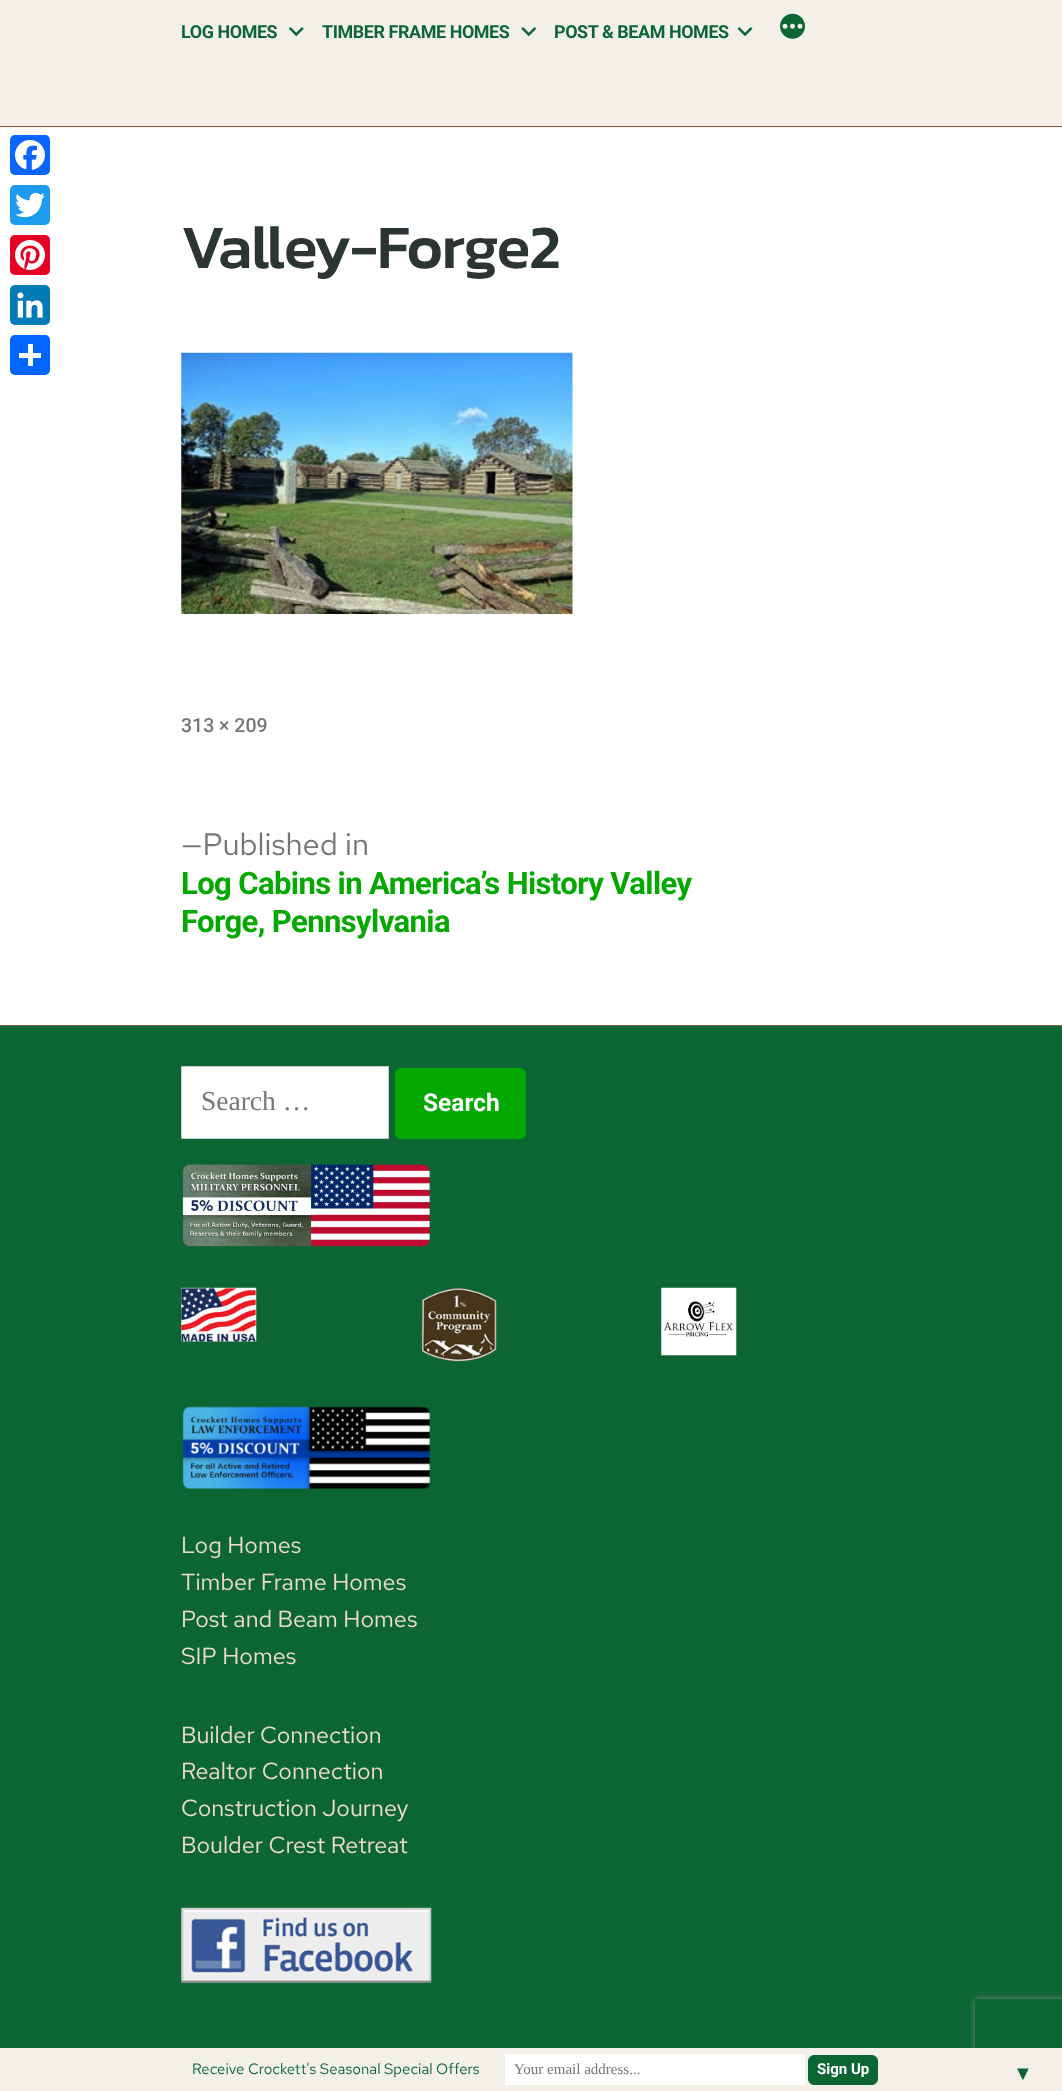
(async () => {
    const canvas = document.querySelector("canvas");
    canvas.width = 1062;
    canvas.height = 2091;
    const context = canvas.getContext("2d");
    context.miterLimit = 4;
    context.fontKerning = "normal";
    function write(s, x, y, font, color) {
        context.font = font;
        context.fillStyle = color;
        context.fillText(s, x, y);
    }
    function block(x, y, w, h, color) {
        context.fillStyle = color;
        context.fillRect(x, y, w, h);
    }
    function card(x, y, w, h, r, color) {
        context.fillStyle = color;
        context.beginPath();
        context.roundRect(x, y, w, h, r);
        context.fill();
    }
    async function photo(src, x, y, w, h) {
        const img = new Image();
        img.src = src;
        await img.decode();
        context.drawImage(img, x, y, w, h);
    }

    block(0, 0, 1062, 2091, "rgb(255, 255, 255)");
    card(10, 135, 40, 40, 5, "rgb(8, 102, 255)");
    await photo("media/1.png", 15, 140, 30, 30);
    card(10, 185, 40, 40, 5, "rgb(29, 155, 240)");
    await photo("media/2.png", 15, 192, 30, 26);
    card(10, 235, 40, 40, 5, "rgb(230, 0, 35)");
    await photo("media/3.png", 15, 240, 30, 30);
    card(10, 285, 40, 40, 5, "rgb(0, 123, 181)");
    await photo("media/4.png", 17, 292, 26, 26);
    card(10, 335, 40, 40, 5, "rgb(1, 102, 255)");
    block(28, 344, 5, 22, "rgb(255, 255, 255)");
    block(19, 353, 22, 5, "rgb(255, 255, 255)");
    block(0, 0, 1062, 128, "rgb(243, 239, 233)");
    block(0, 126, 1062, 1, "rgb(135, 92, 59)");
    context.letterSpacing = "-0.4px";
    write("LOG HOMES", 181, 38, "bold 17.9px Roboto", "rgb(12, 102, 52)");
    await photo("media/5.png", 288, 27, 16, 10);
    write("TIMBER FRAME HOMES", 322, 38, "bold 17.9px Roboto", "rgb(12, 102, 52)");
    await photo("media/6.png", 521, 27, 16, 10);
    write("POST & BEAM HOMES", 554, 38, "bold 17.9px Roboto", "rgb(12, 102, 52)");
    await photo("media/7.png", 737, 27, 16, 10);
    await photo("media/8.png", 780, 13, 25, 26);
    context.letterSpacing = "-1.25px";
    write("Valley-Forge2", 181, 268, "500 62px Kanit", "rgb(44, 54, 48)");
    await photo("media/9.png", 181, 352, 392, 262);
    context.letterSpacing = "0px";
    write("313 × 209", 181, 732, "500 19.5px Roboto", "rgb(118, 118, 118)");
    write("—Published in", 181, 855, "31px Red Hat Text", "rgb(118, 118, 118)");
    context.letterSpacing = "-0.6px";
    write("Log Cabins in America’s History Valley", 181, 894, "bold 31px Roboto", "rgb(3, 168, 0)");
    write("Forge, Pennsylvania", 181, 932, "bold 31px Roboto", "rgb(3, 168, 0)");
    block(0, 1026, 1062, 1022, "rgb(12, 102, 52)");
    block(0, 1025, 1062, 1, "rgb(135, 92, 59)");
    context.fillStyle = "rgb(255, 255, 255)";
    context.beginPath();
    context.rect(181.5, 1066.5, 207, 72);
    context.fill();
    context.strokeStyle = "rgb(204, 204, 204)";
    context.stroke();
    context.letterSpacing = "0px";
    write("Search …", 201, 1110, "27.5px Liberation Serif", "rgb(118, 118, 118)");
    card(395, 1068, 131, 71, 6, "rgb(3, 168, 0)");
    write("Search", 423, 1111, "bold 24.5px Roboto", "rgb(255, 255, 255)");
    await photo("media/10.png", 182, 1164, 248, 83);
    await photo("media/11.png", 181, 1287, 76, 55);
    await photo("media/12.png", 421, 1287, 76, 75);
    await photo("media/13.png", 661, 1287, 76, 69);
    await photo("media/14.png", 182, 1406, 249, 83);
    write("Log Homes", 181, 1553, "23.4px Red Hat Text", "rgb(239, 220, 201)");
    write("Timber Frame Homes", 181, 1590, "23.4px Red Hat Text", "rgb(239, 220, 201)");
    write("Post and Beam Homes", 181, 1627, "23.4px Red Hat Text", "rgb(239, 220, 201)");
    write("SIP Homes", 181, 1664, "23.4px Red Hat Text", "rgb(239, 220, 201)");
    write("Builder Connection", 181, 1743, "23.4px Red Hat Text", "rgb(239, 220, 201)");
    write("Realtor Connection", 181, 1779, "23.4px Red Hat Text", "rgb(239, 220, 201)");
    write("Construction Journey", 181, 1816, "23.4px Red Hat Text", "rgb(239, 220, 201)");
    write("Boulder Crest Retreat", 181, 1853, "23.4px Red Hat Text", "rgb(239, 220, 201)");
    await photo("media/15.png", 181, 1907, 251, 76);
    context.save();
    context.beginPath();
    context.moveTo(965, 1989);
    context.lineTo(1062, 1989);
    context.lineTo(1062, 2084);
    context.lineTo(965, 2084);
    context.closePath();
    context.moveTo(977.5, 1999);
    context.lineTo(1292.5, 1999);
    context.bezierCurveTo(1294, 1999, 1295, 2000, 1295, 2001.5);
    context.lineTo(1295, 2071.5);
    context.bezierCurveTo(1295, 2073, 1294, 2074, 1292.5, 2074);
    context.lineTo(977.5, 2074);
    context.bezierCurveTo(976, 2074, 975, 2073, 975, 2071.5);
    context.lineTo(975, 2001.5);
    context.bezierCurveTo(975, 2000, 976, 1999, 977.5, 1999);
    context.closePath();
    context.clip("evenodd");
    context.fillStyle = "rgb(128, 128, 128)";
    context.filter = "blur(3px)";
    context.beginPath();
    context.roundRect(975, 1999, 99, 75, 2.5);
    context.fill();
    context.filter = "none";
    context.restore();
    block(0, 2048, 1062, 43, "rgb(243, 239, 233)");
    write("Receive Crockett's Seasonal Special Offers", 192, 2074, "15px Red Hat Text", "rgb(12, 102, 52)");
    block(505, 2054, 300, 31, "rgb(255, 255, 255)");
    write("Your email address...", 514, 2074, "15px Liberation Serif", "rgb(118, 118, 118)");
    context.fillStyle = "rgb(12, 102, 52)";
    context.beginPath();
    context.roundRect(808.5, 2055.5, 69, 29, 5.5);
    context.fill();
    context.strokeStyle = "rgb(12, 102, 52)";
    context.stroke();
    write("Sign Up", 817, 2074, "bold 15px Roboto", "rgb(255, 255, 255)");
    write("▼", 1013, 2080, "20px Liberation Sans", "rgb(12, 102, 52)");
})();
